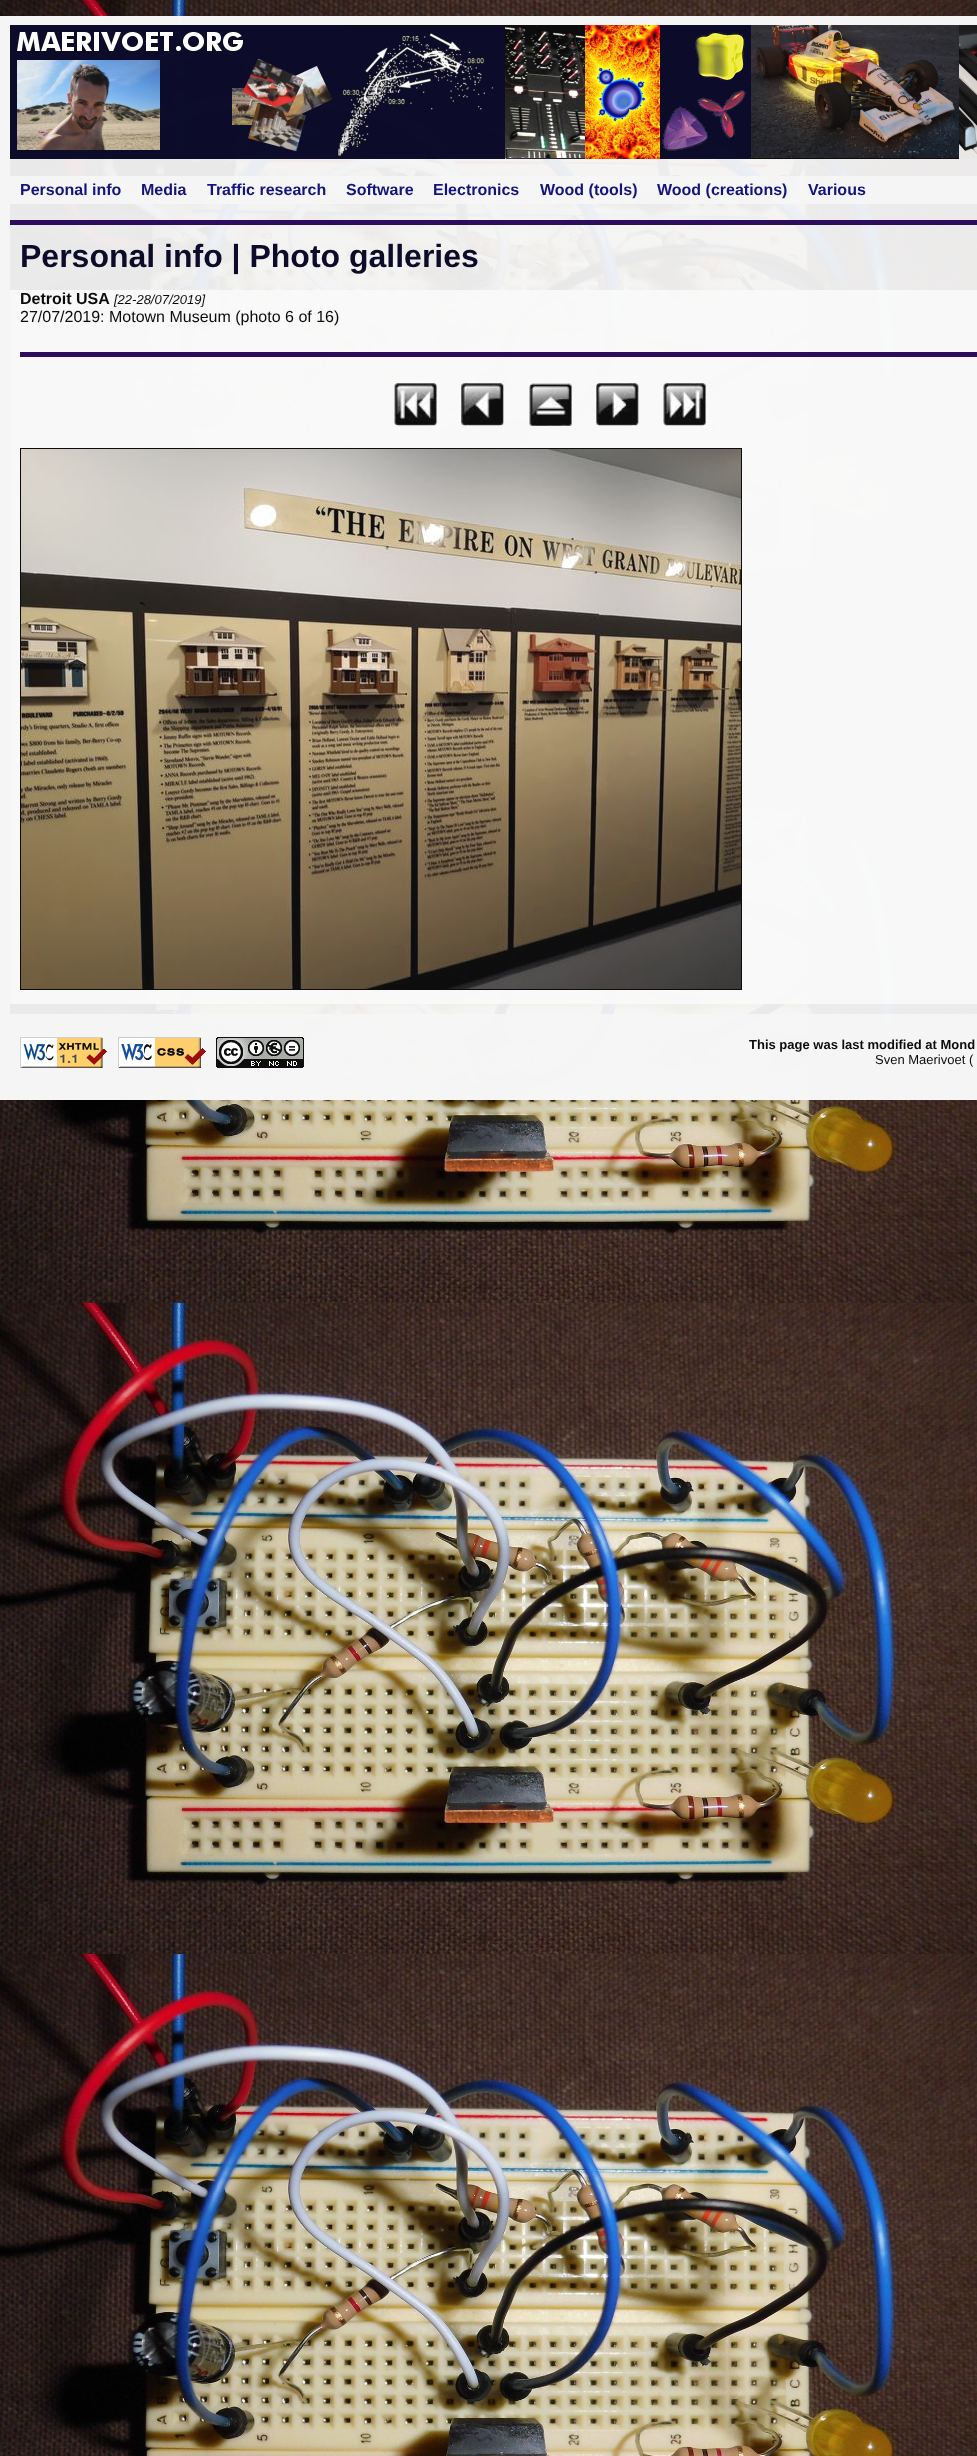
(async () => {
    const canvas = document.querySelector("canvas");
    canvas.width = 977;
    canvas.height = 2456;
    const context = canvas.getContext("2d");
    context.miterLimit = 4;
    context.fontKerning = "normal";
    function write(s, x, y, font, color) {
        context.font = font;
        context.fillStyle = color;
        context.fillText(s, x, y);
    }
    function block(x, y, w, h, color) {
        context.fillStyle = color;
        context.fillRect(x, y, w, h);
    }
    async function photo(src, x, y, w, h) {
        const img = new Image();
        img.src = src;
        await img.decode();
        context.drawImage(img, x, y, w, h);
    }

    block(0, 0, 977, 2456, "rgb(255, 255, 255)");
    await photo("media/1.png", 0, 0, 977, 2456);
    block(0, 16, 977, 1084, "rgba(245, 245, 245, 0.95)");
    context.strokeStyle = "rgba(245, 245, 245, 0.95)";
    context.lineWidth = 10;
    context.strokeRect(5, 21, 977, 1074);
    await photo("media/2.png", 10, 25, 967, 134);
    block(10, 176, 967, 28, "rgba(245, 245, 245, 0.95)");
    write("Personal info", 20, 195, "bold 16px Liberation Sans", "rgb(19, 19, 129)");
    write("Media", 141, 195, "bold 16px Liberation Sans", "rgb(19, 19, 129)");
    write("Traffic research", 207, 195, "bold 16px Liberation Sans", "rgb(19, 19, 129)");
    write("Software", 346, 195, "bold 16px Liberation Sans", "rgb(19, 19, 129)");
    write("Electronics", 433, 195, "bold 16px Liberation Sans", "rgb(19, 19, 129)");
    write("Wood (tools)", 540, 195, "bold 16px Liberation Sans", "rgb(19, 19, 129)");
    write("Wood (creations)", 657, 195, "bold 16px Liberation Sans", "rgb(19, 19, 129)");
    write("Various", 808, 195, "bold 16px Liberation Sans", "rgb(19, 19, 129)");
    block(10, 220, 967, 5, "rgba(34, 0, 85, 0.95)");
    write("Personal info | Photo galleries", 20, 267, "bold 32px Liberation Sans", "rgb(12, 12, 42)");
    block(10, 290, 967, 714, "rgba(249, 249, 249, 0.95)");
    write("Detroit USA", 20, 304, "bold 16px Liberation Sans", "rgb(12, 12, 12)");
    write("[22-28/07/2019]", 114, 304, "italic 13px Liberation Sans", "rgb(12, 12, 12)");
    write("27/07/2019: Motown Museum (photo 6 of 16)", 20, 322, "16px Liberation Sans", "rgb(12, 12, 12)");
    block(20, 352, 957, 5, "rgb(45, 12, 93)");
    await photo("media/3.png", 394, 383, 43, 43);
    await photo("media/4.png", 461, 383, 43, 43);
    await photo("media/5.png", 529, 383, 43, 43);
    await photo("media/6.png", 596, 383, 43, 43);
    await photo("media/7.png", 663, 383, 43, 43);
    context.strokeStyle = "rgb(12, 12, 12)";
    context.lineWidth = 1;
    context.strokeRect(20.5, 448.5, 721, 541);
    await photo("media/8.png", 21, 449, 720, 540);
    block(10, 1014, 967, 76, "rgba(245, 245, 245, 0.95)");
    await photo("media/9.png", 20, 1037, 87, 31);
    await photo("media/10.png", 118, 1037, 88, 31);
    await photo("media/11.png", 216, 1037, 88, 31);
    write("This page was last modified at Mond", 749, 1049, "bold 13px Liberation Sans", "rgb(12, 12, 12)");
    write("Sven Maerivoet (", 875, 1064, "13px Liberation Sans", "rgb(12, 12, 12)");
})();
